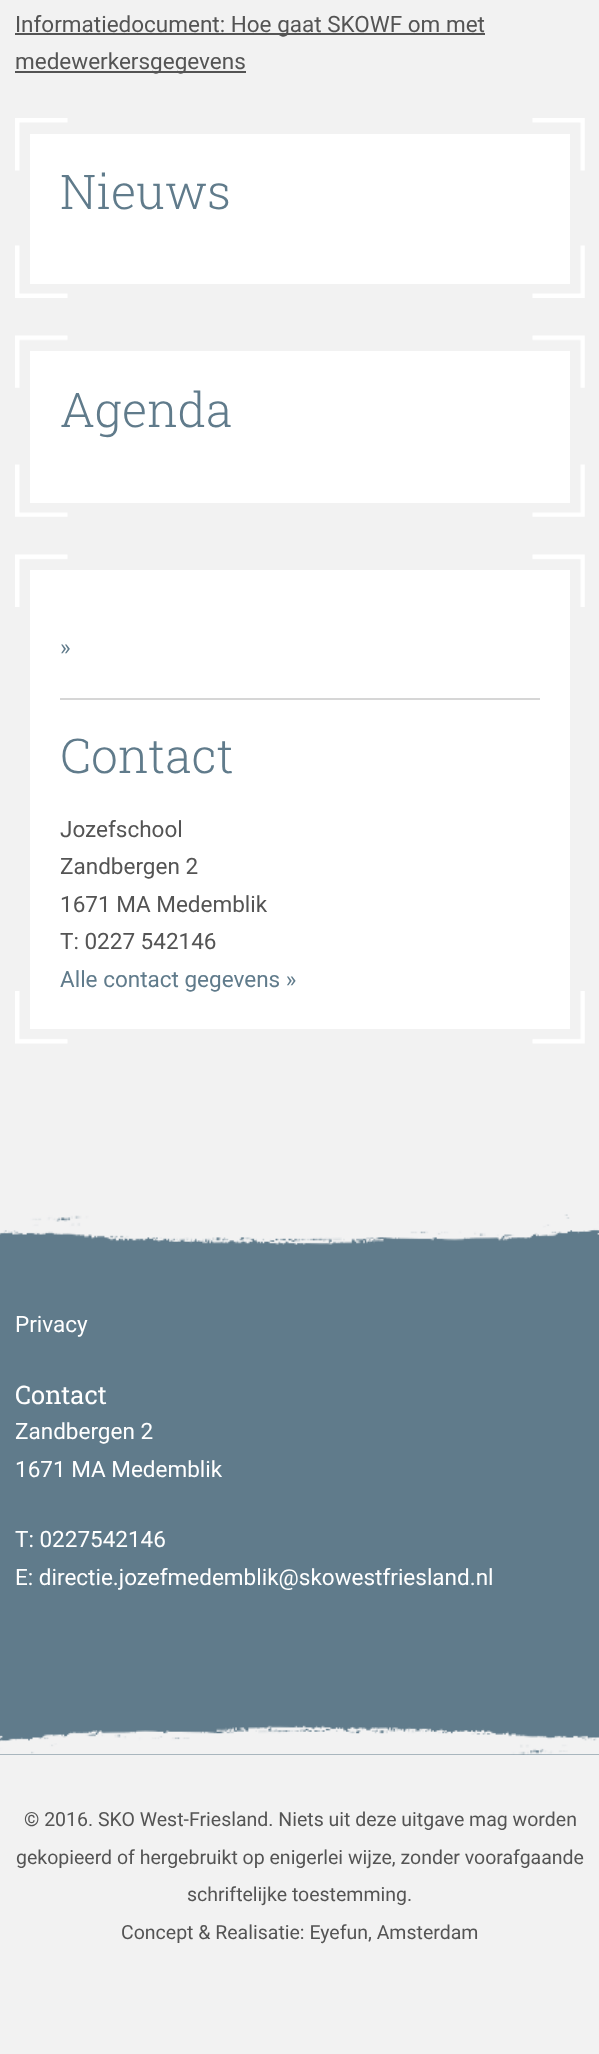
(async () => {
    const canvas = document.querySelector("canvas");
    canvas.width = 599;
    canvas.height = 2054;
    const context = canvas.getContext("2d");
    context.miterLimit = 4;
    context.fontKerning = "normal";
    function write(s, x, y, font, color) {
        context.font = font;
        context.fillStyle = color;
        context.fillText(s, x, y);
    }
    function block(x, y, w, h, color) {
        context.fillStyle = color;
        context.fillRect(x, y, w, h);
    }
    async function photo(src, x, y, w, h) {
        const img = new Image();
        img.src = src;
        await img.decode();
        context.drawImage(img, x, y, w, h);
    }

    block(0, 0, 599, 2054, "rgb(242, 242, 242)");
    block(15, 33, 470, 2, "rgb(84, 84, 84)");
    write("Informatiedocument: Hoe gaat SKOWF om met", 15, 32, "22.5px Roboto", "rgb(84, 84, 84)");
    block(15, 71, 231, 2, "rgb(84, 84, 84)");
    write("medewerkersgegevens", 15, 69, "22.5px Roboto", "rgb(84, 84, 84)");
    await photo("media/1.png", 15, 118, 53, 53);
    await photo("media/2.png", 532, 118, 53, 53);
    await photo("media/3.png", 15, 245, 53, 53);
    await photo("media/4.png", 532, 245, 53, 53);
    block(30, 134, 540, 150, "rgb(255, 255, 255)");
    write("Nieuws", 60, 209, "300 48px Roboto Slab", "rgb(96, 123, 139)");
    await photo("media/5.png", 15, 335, 53, 53);
    await photo("media/6.png", 532, 335, 53, 53);
    await photo("media/7.png", 15, 464, 53, 53);
    await photo("media/8.png", 532, 464, 53, 53);
    block(30, 351, 540, 152, "rgb(255, 255, 255)");
    write("Agenda", 60, 427, "300 48px Roboto Slab", "rgb(96, 123, 139)");
    await photo("media/9.png", 15, 554, 53, 53);
    await photo("media/10.png", 532, 554, 53, 53);
    await photo("media/11.png", 15, 991, 53, 53);
    await photo("media/12.png", 532, 991, 53, 53);
    block(30, 570, 540, 459, "rgb(255, 255, 255)");
    block(60, 698, 480, 2, "rgb(214, 214, 214)");
    write("»", 60, 655, "22.5px Roboto", "rgb(96, 123, 139)");
    write("Contact", 60, 773, "300 48px Roboto Slab", "rgb(96, 123, 139)");
    write("Jozefschool", 60, 837, "22.5px Roboto", "rgb(84, 84, 84)");
    write("Zandbergen 2", 60, 874, "22.5px Roboto", "rgb(84, 84, 84)");
    write("1671 MA Medemblik", 60, 912, "22.5px Roboto", "rgb(84, 84, 84)");
    write("T: 0227 542146", 60, 949, "22.5px Roboto", "rgb(84, 84, 84)");
    write("Alle contact gegevens »", 60, 987, "22.5px Roboto", "rgb(96, 123, 139)");
    block(0, 1214, 599, 541, "rgb(96, 123, 139)");
    await photo("media/13.png", 0, 1202, 599, 43);
    write("Privacy", 15, 1332, "22.5px Roboto", "rgb(255, 255, 255)");
    write("Contact", 15, 1404, "25.5px Roboto Slab", "rgb(255, 255, 255)");
    write("Zandbergen 2", 15, 1439, "22.5px Roboto", "rgb(255, 255, 255)");
    write("1671 MA Medemblik", 15, 1477, "22.5px Roboto", "rgb(255, 255, 255)");
    write("T: 0227542146", 15, 1547, "22.5px Roboto", "rgb(255, 255, 255)");
    write("E: directie.jozefmedemblik@skowestfriesland.nl", 15, 1585, "22.5px Roboto", "rgb(255, 255, 255)");
    await photo("media/14.png", 0, 1725, 599, 30);
    write("© 2016. SKO West-Friesland. Niets uit deze uitgave mag worden", 24, 1826, "19.5px Roboto", "rgb(84, 84, 84)");
    write("gekopieerd of hergebruikt op enigerlei wijze, zonder voorafgaande", 16, 1864, "19.5px Roboto", "rgb(84, 84, 84)");
    write("schriftelijke toestemming.", 187, 1901, "19.5px Roboto", "rgb(84, 84, 84)");
    write("Concept & Realisatie: Eyefun, Amsterdam", 121, 1939, "19.5px Roboto", "rgb(84, 84, 84)");
})();
